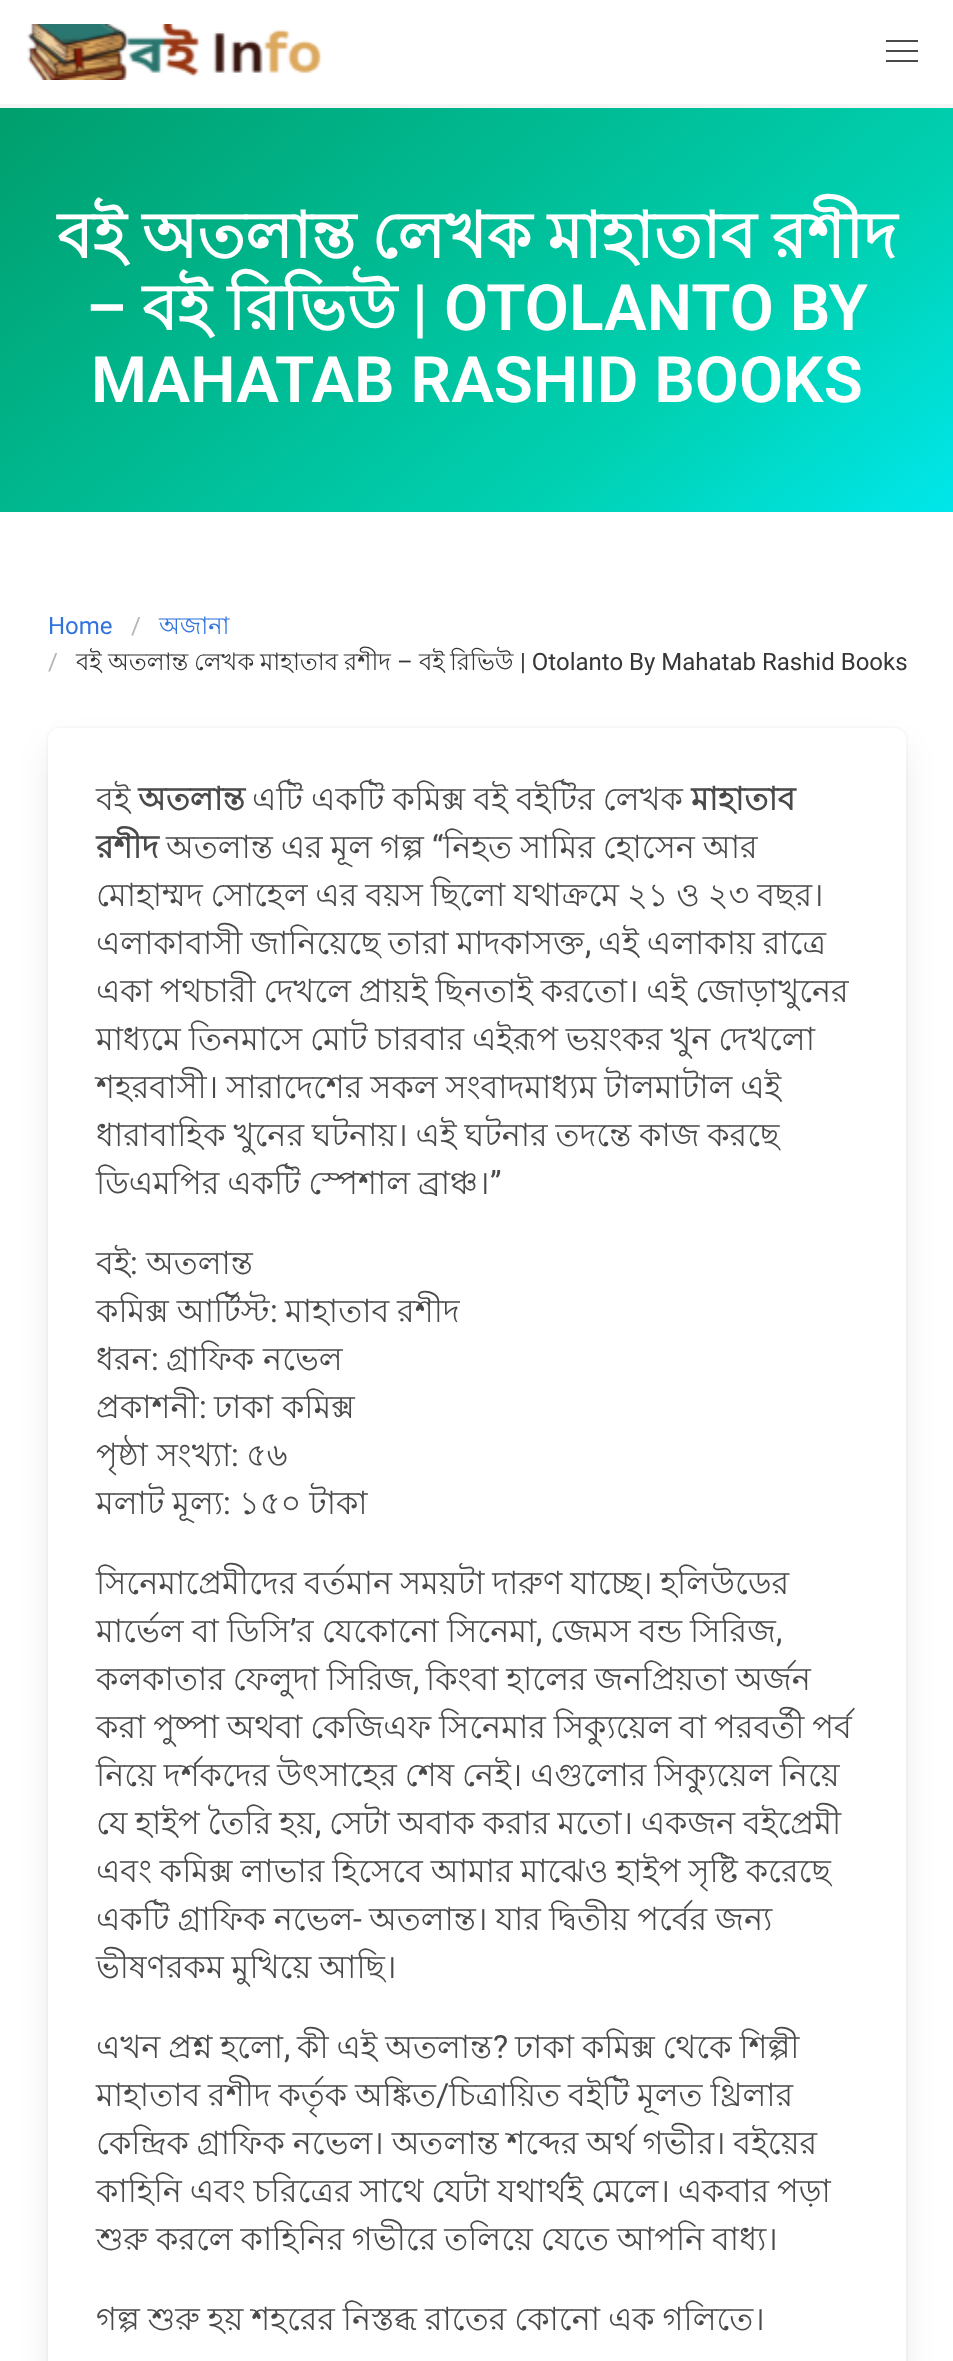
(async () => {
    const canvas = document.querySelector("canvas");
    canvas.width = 953;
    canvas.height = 2361;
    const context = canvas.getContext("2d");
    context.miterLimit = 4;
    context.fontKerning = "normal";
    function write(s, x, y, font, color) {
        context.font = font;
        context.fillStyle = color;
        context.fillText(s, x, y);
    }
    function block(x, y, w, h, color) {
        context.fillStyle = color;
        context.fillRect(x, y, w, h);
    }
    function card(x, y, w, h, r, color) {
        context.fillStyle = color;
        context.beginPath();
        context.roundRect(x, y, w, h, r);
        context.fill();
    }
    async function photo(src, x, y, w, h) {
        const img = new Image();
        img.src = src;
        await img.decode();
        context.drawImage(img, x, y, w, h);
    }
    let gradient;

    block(0, 0, 953, 2361, "rgb(255, 255, 255)");
    block(0, 104, 953, 4, "rgb(245, 245, 245)");
    await photo("media/1.png", 27, 24, 295, 56);
    block(886, 40, 32, 2, "rgb(74, 74, 74)");
    block(886, 50, 32, 2, "rgb(74, 74, 74)");
    block(886, 60, 32, 2, "rgb(74, 74, 74)");
    gradient = context.createLinearGradient(188, -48, 766, 664);
    gradient.addColorStop(0, "rgb(0, 158, 108)");
    gradient.addColorStop(0.71, "rgb(0, 209, 178)");
    gradient.addColorStop(1, "rgb(0, 231, 235)");
    context.fillStyle = gradient;
    context.fillRect(0, 108, 953, 404);
    context.wordSpacing = "-2px";
    write("বই অতলান্ত লেখক মাহাতাব রশীদ", 57, 258, "bold 64px Lohit Bengali", "rgb(255, 255, 255)");
    context.wordSpacing = "0px";
    write("–", 86, 330, "600 64px Roboto", "rgb(255, 255, 255)");
    write("বই", 142, 330, "bold 64px Lohit Bengali", "rgb(255, 255, 255)");
    write("রিভিউ", 227, 330, "bold 64px Lohit Bengali", "rgb(255, 255, 255)");
    write("| OTOLANTO BY", 412, 330, "600 64px Roboto", "rgb(255, 255, 255)");
    write("MAHATAB RASHID BOOKS", 91, 402, "600 64px Roboto", "rgb(255, 255, 255)");
    write("Home", 48, 634, "24px Roboto", "rgb(50, 115, 220)");
    write("/", 131, 634, "24px Roboto", "rgb(181, 181, 181)");
    write("অজানা", 159, 634, "24px Lohit Bengali", "rgb(50, 115, 220)");
    write("/", 48, 670, "24px Roboto", "rgb(181, 181, 181)");
    write("বই", 76, 670, "24px Lohit Bengali", "rgb(54, 54, 54)");
    write("অতলান্ত", 108, 670, "24px Lohit Bengali", "rgb(54, 54, 54)");
    write("লেখক", 194, 670, "24px Lohit Bengali", "rgb(54, 54, 54)");
    write("মাহাতাব", 260, 670, "24px Lohit Bengali", "rgb(54, 54, 54)");
    write("রশীদ", 344, 670, "24px Lohit Bengali", "rgb(54, 54, 54)");
    write("–", 397, 670, "24px Roboto", "rgb(54, 54, 54)");
    write("বই", 419, 670, "24px Lohit Bengali", "rgb(54, 54, 54)");
    write("রিভিউ", 450, 670, "24px Lohit Bengali", "rgb(54, 54, 54)");
    write("| Otolanto By Mahatab Rashid Books", 520, 670, "24px Roboto", "rgb(54, 54, 54)");
    context.beginPath();
    context.roundRect(47, 727, 860, 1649, 13);
    context.strokeStyle = "rgb(250, 250, 250)";
    context.lineWidth = 2;
    context.stroke();
    context.fillStyle = "rgba(10, 10, 10, 0.1)";
    context.filter = "blur(16px)";
    context.beginPath();
    context.roundRect(52, 748, 850, 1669, 8);
    context.fill();
    context.filter = "none";
    card(48, 728, 858, 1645, 12, "rgb(255, 255, 255)");
    write("বই", 96, 810, "32px Lohit Bengali", "rgb(74, 74, 74)");
    write("অতলান্ত", 138, 810, "bold 32px Lohit Bengali", "rgb(74, 74, 74)");
    context.wordSpacing = "-0.75px";
    write("এটি একটি কমিক্স বই বইটির লেখক", 252, 810, "32px Lohit Bengali", "rgb(74, 74, 74)");
    context.wordSpacing = "0px";
    write("মাহাতাব", 691, 810, "bold 32px Lohit Bengali", "rgb(74, 74, 74)");
    write("রশীদ", 96, 858, "bold 32px Lohit Bengali", "rgb(74, 74, 74)");
    context.wordSpacing = "-1px";
    write("অতলান্ত এর মূল গল্প", 166, 858, "32px Lohit Bengali", "rgb(74, 74, 74)");
    context.wordSpacing = "0px";
    write("“", 432, 858, "32px Roboto", "rgb(74, 74, 74)");
    context.wordSpacing = "-1px";
    write("নিহত সামির হোসেন আর", 443, 858, "32px Lohit Bengali", "rgb(74, 74, 74)");
    write("মোহাম্মদ সোহেল এর বয়স ছিলো যথাক্রমে ২১ ও ২৩ বছর।", 96, 906, "32px Lohit Bengali", "rgb(74, 74, 74)");
    write("এলাকাবাসী জানিয়েছে তারা মাদকাসক্ত", 96, 954, "32px Lohit Bengali", "rgb(74, 74, 74)");
    context.wordSpacing = "0px";
    write(",", 585, 954, "32px Roboto", "rgb(74, 74, 74)");
    context.wordSpacing = "-1px";
    write("এই এলাকায় রাত্রে", 598, 954, "32px Lohit Bengali", "rgb(74, 74, 74)");
    write("একা পথচারী দেখলে প্রায়ই ছিনতাই করতো। এই জোড়াখুনের", 96, 1002, "32px Lohit Bengali", "rgb(74, 74, 74)");
    write("মাধ্যমে তিনমাসে মোট চারবার এইরূপ ভয়ংকর খুন দেখলো", 96, 1050, "32px Lohit Bengali", "rgb(74, 74, 74)");
    write("শহরবাসী। সারাদেশের সকল সংবাদমাধ্যম টালমাটাল এই", 96, 1098, "32px Lohit Bengali", "rgb(74, 74, 74)");
    write("ধারাবাহিক খুনের ঘটনায়। এই ঘটনার তদন্তে কাজ করছে", 96, 1146, "32px Lohit Bengali", "rgb(74, 74, 74)");
    write("ডিএমপির একটি স্পেশাল ব্রাঞ্চ।", 96, 1194, "32px Lohit Bengali", "rgb(74, 74, 74)");
    context.wordSpacing = "0px";
    write("”", 490, 1194, "32px Roboto", "rgb(74, 74, 74)");
    write("বই", 96, 1274, "32px Lohit Bengali", "rgb(74, 74, 74)");
    write(":", 130, 1274, "32px Roboto", "rgb(74, 74, 74)");
    write("অতলান্ত", 146, 1274, "32px Lohit Bengali", "rgb(74, 74, 74)");
    context.wordSpacing = "-1px";
    write("কমিক্স আর্টিস্ট", 96, 1322, "32px Lohit Bengali", "rgb(74, 74, 74)");
    context.wordSpacing = "0px";
    write(":", 270, 1322, "32px Roboto", "rgb(74, 74, 74)");
    context.wordSpacing = "-1px";
    write("মাহাতাব রশীদ", 285, 1322, "32px Lohit Bengali", "rgb(74, 74, 74)");
    context.wordSpacing = "0px";
    write("ধরন", 96, 1370, "32px Lohit Bengali", "rgb(74, 74, 74)");
    write(":", 151, 1370, "32px Roboto", "rgb(74, 74, 74)");
    write("গ্রাফিক নভেল", 166, 1370, "32px Lohit Bengali", "rgb(74, 74, 74)");
    write("প্রকাশনী", 96, 1418, "32px Lohit Bengali", "rgb(74, 74, 74)");
    write(":", 199, 1418, "32px Roboto", "rgb(74, 74, 74)");
    write("ঢাকা কমিক্স", 214, 1418, "32px Lohit Bengali", "rgb(74, 74, 74)");
    write("পৃষ্ঠা সংখ্যা", 96, 1466, "32px Lohit Bengali", "rgb(74, 74, 74)");
    write(":", 231, 1466, "32px Roboto", "rgb(74, 74, 74)");
    write("৫৬", 246, 1466, "32px Lohit Bengali", "rgb(74, 74, 74)");
    context.wordSpacing = "-1px";
    write("মলাট মূল্য", 96, 1514, "32px Lohit Bengali", "rgb(74, 74, 74)");
    context.wordSpacing = "0px";
    write(":", 223, 1514, "32px Roboto", "rgb(74, 74, 74)");
    context.wordSpacing = "-1px";
    write("১৫০ টাকা", 239, 1514, "32px Lohit Bengali", "rgb(74, 74, 74)");
    write("সিনেমাপ্রেমীদের বর্তমান সময়টা দারুণ যাচ্ছে। হলিউডের", 96, 1594, "32px Lohit Bengali", "rgb(74, 74, 74)");
    context.wordSpacing = "-0.75px";
    write("মার্ভেল বা ডিসি", 96, 1642, "32px Lohit Bengali", "rgb(74, 74, 74)");
    context.wordSpacing = "0px";
    write("’", 290, 1642, "32px Roboto", "rgb(74, 74, 74)");
    context.wordSpacing = "-0.75px";
    write("র যেকোনো সিনেমা", 296, 1642, "32px Lohit Bengali", "rgb(74, 74, 74)");
    write("জেমস বন্ড সিরিজ", 550, 1642, "32px Lohit Bengali", "rgb(74, 74, 74)");
    context.wordSpacing = "0px";
    write(",", 536, 1642, "32px Roboto", "rgb(74, 74, 74)");
    write(",", 776, 1642, "32px Roboto", "rgb(74, 74, 74)");
    context.wordSpacing = "-1px";
    write("কলকাতার ফেলুদা সিরিজ", 96, 1690, "32px Lohit Bengali", "rgb(74, 74, 74)");
    context.wordSpacing = "0px";
    write(",", 413, 1690, "32px Roboto", "rgb(74, 74, 74)");
    context.wordSpacing = "-1px";
    write("কিংবা হালের জনপ্রিয়তা অর্জন", 426, 1690, "32px Lohit Bengali", "rgb(74, 74, 74)");
    write("করা পুষ্পা অথবা কেজিএফ সিনেমার সিক্যুয়েল বা পরবর্তী পর্ব", 96, 1738, "32px Lohit Bengali", "rgb(74, 74, 74)");
    write("নিয়ে দর্শকদের উৎসাহের শেষ নেই। এগুলোর সিক্যুয়েল নিয়ে", 96, 1786, "32px Lohit Bengali", "rgb(74, 74, 74)");
    write("যে হাইপ তৈরি হয়", 96, 1834, "32px Lohit Bengali", "rgb(74, 74, 74)");
    context.wordSpacing = "0px";
    write(",", 315, 1834, "32px Roboto", "rgb(74, 74, 74)");
    context.wordSpacing = "-1px";
    write("সেটা অবাক করার মতো। একজন বইপ্রেমী", 329, 1834, "32px Lohit Bengali", "rgb(74, 74, 74)");
    write("এবং কমিক্স লাভার হিসেবে আমার মাঝেও হাইপ সৃষ্টি করেছে", 96, 1882, "32px Lohit Bengali", "rgb(74, 74, 74)");
    context.wordSpacing = "-0.75px";
    write("একটি গ্রাফিক নভেল", 96, 1930, "32px Lohit Bengali", "rgb(74, 74, 74)");
    context.wordSpacing = "0px";
    write("-", 353, 1930, "32px Roboto", "rgb(74, 74, 74)");
    context.wordSpacing = "-0.75px";
    write("অতলান্ত। যার দ্বিতীয় পর্বের জন্য", 369, 1930, "32px Lohit Bengali", "rgb(74, 74, 74)");
    context.wordSpacing = "-1px";
    write("ভীষণরকম মুখিয়ে আছি।", 96, 1978, "32px Lohit Bengali", "rgb(74, 74, 74)");
    write("এখন প্রশ্ন হলো", 96, 2058, "32px Lohit Bengali", "rgb(74, 74, 74)");
    context.wordSpacing = "0px";
    write(",", 284, 2058, "32px Roboto", "rgb(74, 74, 74)");
    context.wordSpacing = "-1px";
    write("কী এই অতলান্ত", 297, 2058, "32px Lohit Bengali", "rgb(74, 74, 74)");
    context.wordSpacing = "0px";
    write("?", 493, 2058, "32px Roboto", "rgb(74, 74, 74)");
    context.wordSpacing = "-1px";
    write("ঢাকা কমিক্স থেকে শিল্পী", 515, 2058, "32px Lohit Bengali", "rgb(74, 74, 74)");
    write("মাহাতাব রশীদ কর্তৃক অঙ্কিত", 96, 2106, "32px Lohit Bengali", "rgb(74, 74, 74)");
    context.wordSpacing = "0px";
    write("/", 436, 2106, "32px Roboto", "rgb(74, 74, 74)");
    context.wordSpacing = "-1px";
    write("চিত্রায়িত বইটি মূলত থ্রিলার", 449, 2106, "32px Lohit Bengali", "rgb(74, 74, 74)");
    write("কেন্দ্রিক গ্রাফিক নভেল। অতলান্ত শব্দের অর্থ গভীর। বইয়ের", 96, 2154, "32px Lohit Bengali", "rgb(74, 74, 74)");
    write("কাহিনি এবং চরিত্রের সাথে যেটা যথার্থই মেলে। একবার পড়া", 96, 2202, "32px Lohit Bengali", "rgb(74, 74, 74)");
    write("শুরু করলে কাহিনির গভীরে তলিয়ে যেতে আপনি বাধ্য।", 96, 2250, "32px Lohit Bengali", "rgb(74, 74, 74)");
    write("গল্প শুরু হয় শহরের নিস্তব্ধ রাতের কোনো এক গলিতে।", 96, 2330, "32px Lohit Bengali", "rgb(74, 74, 74)");
})();
